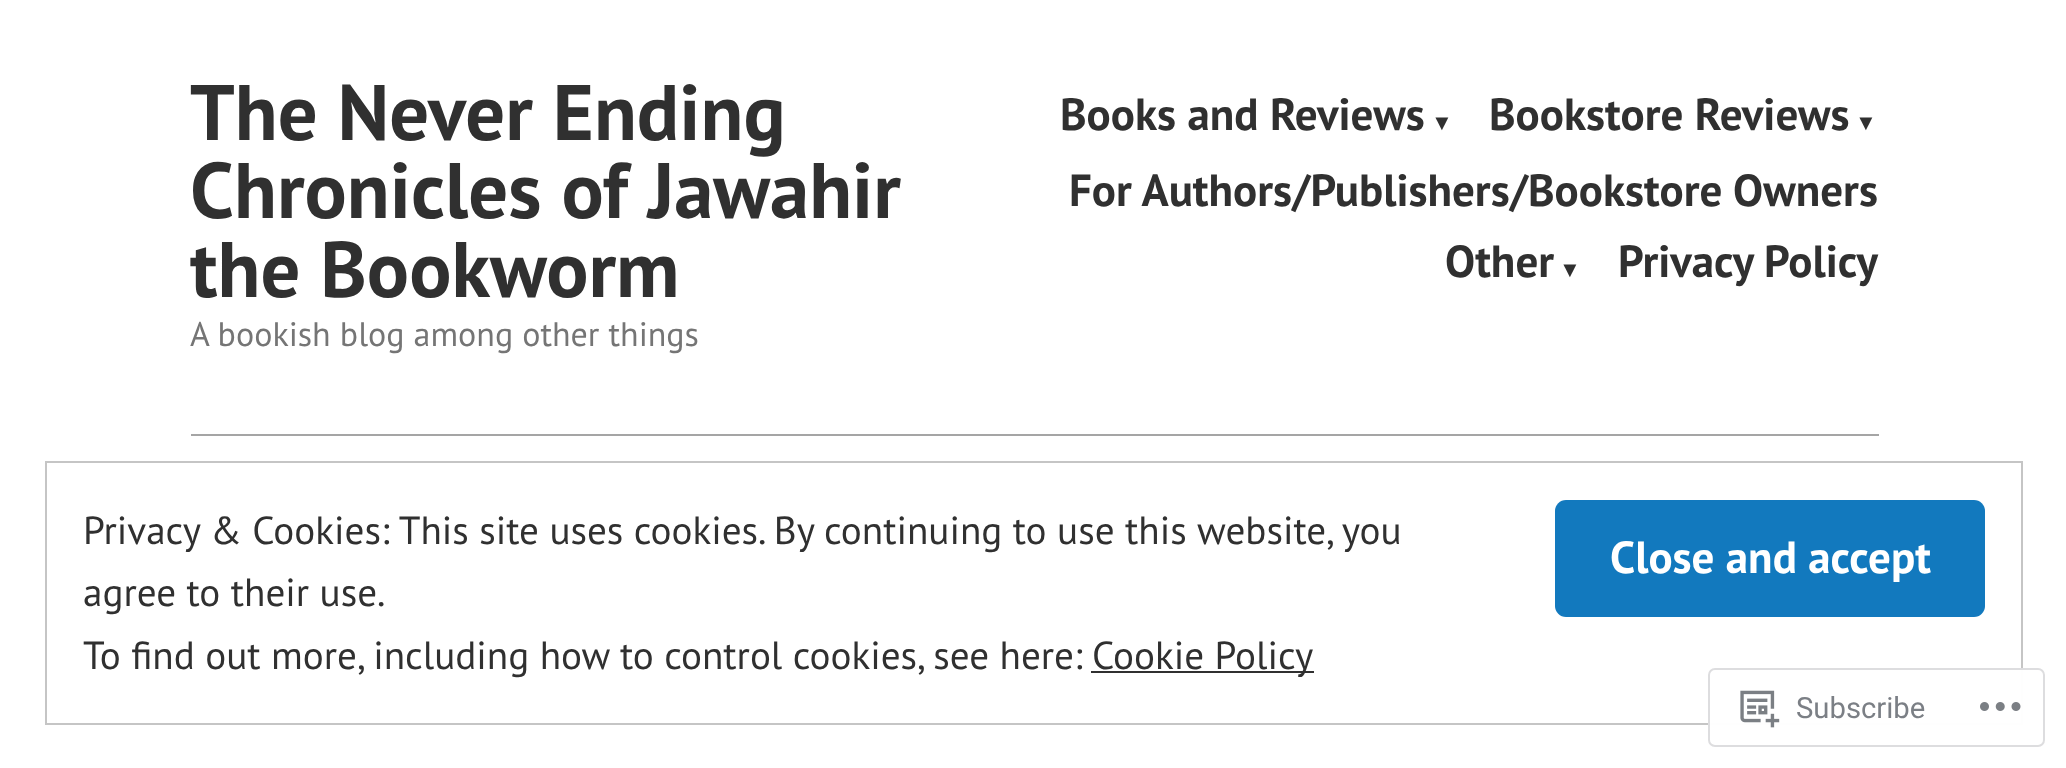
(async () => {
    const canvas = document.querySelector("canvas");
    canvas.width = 2066;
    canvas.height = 768;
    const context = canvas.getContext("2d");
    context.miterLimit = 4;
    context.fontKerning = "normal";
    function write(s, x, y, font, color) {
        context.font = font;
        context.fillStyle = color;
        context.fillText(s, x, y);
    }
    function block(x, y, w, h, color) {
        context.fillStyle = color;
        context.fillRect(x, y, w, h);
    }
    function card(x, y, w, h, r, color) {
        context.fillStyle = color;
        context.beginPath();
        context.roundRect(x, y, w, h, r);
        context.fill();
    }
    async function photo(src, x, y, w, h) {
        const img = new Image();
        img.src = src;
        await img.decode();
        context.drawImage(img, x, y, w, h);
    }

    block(0, 0, 2066, 768, "rgb(255, 255, 255)");
    write("The Never Ending", 190, 140, "bold 78.75px PT Sans", "rgb(48, 48, 48)");
    write("Chronicles of Jawahir", 190, 218, "bold 78.75px PT Sans", "rgb(48, 48, 48)");
    write("the Bookworm", 190, 297, "bold 78.75px PT Sans", "rgb(48, 48, 48)");
    write("Books and Reviews", 1060, 130, "bold 45px PT Sans", "rgb(48, 48, 48)");
    write("▼", 1431, 130, "bold 22px Liberation Sans", "rgb(48, 48, 48)");
    write("Bookstore Reviews", 1489, 130, "bold 45px PT Sans", "rgb(48, 48, 48)");
    write("▼", 1855, 130, "bold 22px Liberation Sans", "rgb(48, 48, 48)");
    write("For Authors/Publishers/Bookstore Owners", 1069, 206, "bold 45px PT Sans", "rgb(48, 48, 48)");
    write("Other", 1445, 277, "bold 45px PT Sans", "rgb(48, 48, 48)");
    write("▼", 1559, 277, "bold 22px Liberation Sans", "rgb(48, 48, 48)");
    write("Privacy Policy", 1618, 277, "bold 45px PT Sans", "rgb(48, 48, 48)");
    write("A bookish blog among other things", 190, 346, "34px PT Sans", "rgb(117, 117, 117)");
    block(191, 434, 1688, 2, "rgb(165, 165, 165)");
    context.strokeStyle = "rgb(197, 197, 197)";
    context.lineWidth = 2;
    context.strokeRect(46, 462, 1976, 262);
    write("Privacy & Cookies: This site uses cookies. By continuing to use this website, you", 83, 544, "39.15px PT Sans", "rgb(48, 48, 48)");
    card(1555, 500, 430, 117, 11, "rgb(18, 121, 190)");
    write("Close and accept", 1610, 573, "bold 45px PT Sans", "rgb(255, 255, 255)");
    write("agree to their use.", 83, 606, "39.15px PT Sans", "rgb(48, 48, 48)");
    write("To find out more, including how to control cookies, see here:", 83, 669, "39.15px PT Sans", "rgb(48, 48, 48)");
    block(1091, 671, 223, 2, "rgb(48, 48, 48)");
    write("Cookie Policy", 1092, 669, "39.15px PT Sans", "rgb(48, 48, 48)");
    context.fillStyle = "rgba(255, 255, 255, 0.98)";
    context.beginPath();
    context.roundRect(1709, 669, 335, 77, 6);
    context.fill();
    context.strokeStyle = "rgb(221, 221, 223)";
    context.stroke();
    await photo("media/1.png", 1740, 690, 40, 38);
    write("Subscribe", 1796, 718, "29.25px Roboto", "rgb(123, 127, 133)");
    await photo("media/2.png", 1980, 702, 41, 9);
})();
